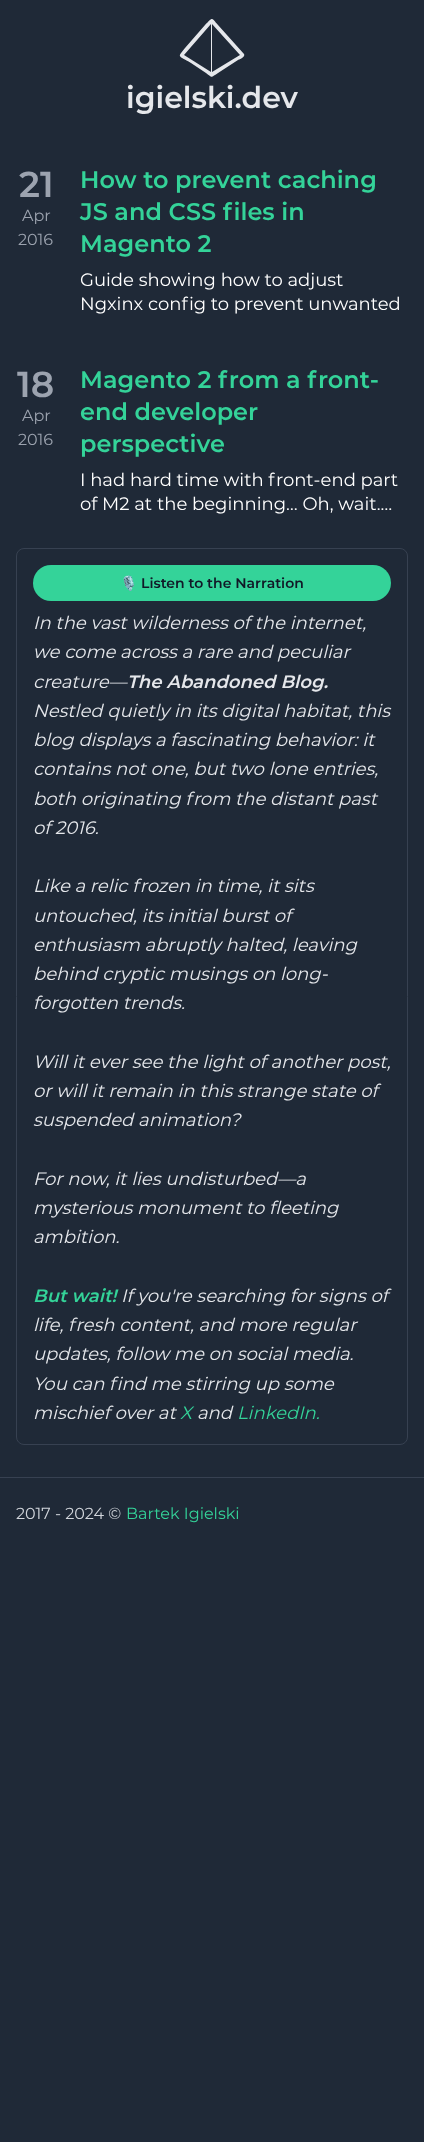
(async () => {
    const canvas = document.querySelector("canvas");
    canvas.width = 424;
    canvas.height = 2142;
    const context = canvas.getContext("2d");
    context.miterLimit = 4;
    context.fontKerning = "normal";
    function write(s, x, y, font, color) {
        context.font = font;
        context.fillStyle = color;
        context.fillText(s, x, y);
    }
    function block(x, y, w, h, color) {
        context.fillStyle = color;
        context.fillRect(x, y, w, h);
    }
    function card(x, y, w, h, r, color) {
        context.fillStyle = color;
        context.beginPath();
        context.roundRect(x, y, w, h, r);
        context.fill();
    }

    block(0, 0, 424, 2142, "rgb(31, 41, 55)");
    context.fillStyle = "rgb(229, 231, 235)";
    context.beginPath();
    context.moveTo(244, 54);
    context.lineTo(218, 25);
    context.bezierCurveTo(211, 17, 213, 17, 205, 25);
    context.lineTo(185, 48);
    context.bezierCurveTo(177, 58, 178, 55, 191, 63);
    context.lineTo(206, 73);
    context.bezierCurveTo(213, 78, 210, 78, 218, 73);
    context.lineTo(238, 60);
    context.bezierCurveTo(238, 60, 246, 57, 244, 54);
    context.closePath();
    context.moveTo(211, 72);
    context.lineTo(184, 55);
    context.lineTo(211, 24);
    context.closePath();
    context.moveTo(212, 72);
    context.lineTo(212, 24);
    context.lineTo(240, 55);
    context.closePath();
    context.fill();
    write("igielski.dev", 126, 108, "600 30px Montserrat", "rgb(229, 231, 235)");
    write("21", 19, 197, "600 36px Montserrat", "rgb(156, 163, 175)");
    write("Apr", 22, 221, "16px Montserrat", "rgb(156, 163, 175)");
    write("2016", 18, 245, "16px Montserrat", "rgb(156, 163, 175)");
    write("How to prevent caching", 80, 188, "600 24px Montserrat", "rgb(52, 211, 153)");
    write("JS and CSS files in", 80, 220, "600 24px Montserrat", "rgb(52, 211, 153)");
    write("Magento 2", 80, 252, "600 24px Montserrat", "rgb(52, 211, 153)");
    write("Guide showing how to adjust", 80, 286, "18px Montserrat", "rgb(255, 255, 255)");
    write("Ngxinx config to prevent unwanted", 80, 310, "18px Montserrat", "rgb(255, 255, 255)");
    write("18", 17, 397, "600 36px Montserrat", "rgb(156, 163, 175)");
    write("Apr", 22, 421, "16px Montserrat", "rgb(156, 163, 175)");
    write("2016", 18, 445, "16px Montserrat", "rgb(156, 163, 175)");
    write("Magento 2 from a front-", 80, 388, "600 24px Montserrat", "rgb(52, 211, 153)");
    write("end developer", 80, 420, "600 24px Montserrat", "rgb(52, 211, 153)");
    write("perspective", 80, 452, "600 24px Montserrat", "rgb(52, 211, 153)");
    write("I had hard time with front-end part", 80, 486, "18px Montserrat", "rgb(255, 255, 255)");
    write("of M2 at the beginning… Oh, wait.…", 80, 510, "18px Montserrat", "rgb(255, 255, 255)");
    context.beginPath();
    context.roundRect(16.5, 548.5, 391, 896, 7.5);
    context.strokeStyle = "rgb(55, 65, 81)";
    context.stroke();
    card(33, 565, 358, 36, 18, "rgb(52, 211, 153)");
    write("🎙️", 120, 588, "bold 14px Noto Color Emoji", "rgb(17, 24, 39)");
    write("Listen to the Narration", 141, 588, "600 14px Montserrat", "rgb(17, 24, 39)");
    write("In the vast wilderness of the internet,", 33, 629, "italic 18px Montserrat", "rgb(229, 231, 235)");
    write("we come across a rare and peculiar", 33, 658, "italic 18px Montserrat", "rgb(229, 231, 235)");
    write("creature—", 33, 688, "italic 18px Montserrat", "rgb(229, 231, 235)");
    write("The Abandoned Blog.", 127, 688, "italic 600 18px Montserrat", "rgb(229, 231, 235)");
    write("Nestled quietly in its digital habitat, this", 33, 717, "italic 18px Montserrat", "rgb(229, 231, 235)");
    write("blog displays a fascinating behavior: it", 33, 746, "italic 18px Montserrat", "rgb(229, 231, 235)");
    write("contains not one, but two lone entries,", 33, 775, "italic 18px Montserrat", "rgb(229, 231, 235)");
    write("both originating from the distant past", 33, 805, "italic 18px Montserrat", "rgb(229, 231, 235)");
    write("of 2016.", 33, 834, "italic 18px Montserrat", "rgb(229, 231, 235)");
    write("Like a relic frozen in time, it sits", 33, 892, "italic 18px Montserrat", "rgb(229, 231, 235)");
    write("untouched, its initial burst of", 33, 922, "italic 18px Montserrat", "rgb(229, 231, 235)");
    write("enthusiasm abruptly halted, leaving", 33, 951, "italic 18px Montserrat", "rgb(229, 231, 235)");
    write("behind cryptic musings on long-", 33, 980, "italic 18px Montserrat", "rgb(229, 231, 235)");
    write("forgotten trends.", 33, 1009, "italic 18px Montserrat", "rgb(229, 231, 235)");
    write("Will it ever see the light of another post,", 33, 1068, "italic 18px Montserrat", "rgb(229, 231, 235)");
    write("or will it remain in this strange state of", 33, 1097, "italic 18px Montserrat", "rgb(229, 231, 235)");
    write("suspended animation?", 33, 1126, "italic 18px Montserrat", "rgb(229, 231, 235)");
    write("For now, it lies undisturbed—a", 33, 1185, "italic 18px Montserrat", "rgb(229, 231, 235)");
    write("mysterious monument to fleeting", 33, 1214, "italic 18px Montserrat", "rgb(229, 231, 235)");
    write("ambition.", 33, 1243, "italic 18px Montserrat", "rgb(229, 231, 235)");
    write("But wait!", 33, 1302, "italic 600 18px Montserrat", "rgb(52, 211, 153)");
    write("If you're searching for signs of", 121, 1302, "italic 18px Montserrat", "rgb(229, 231, 235)");
    write("life, fresh content, and more regular", 33, 1331, "italic 18px Montserrat", "rgb(229, 231, 235)");
    write("updates, follow me on social media.", 33, 1360, "italic 18px Montserrat", "rgb(229, 231, 235)");
    write("You can find me stirring up some", 33, 1390, "italic 18px Montserrat", "rgb(229, 231, 235)");
    write("mischief over at", 33, 1419, "italic 18px Montserrat", "rgb(229, 231, 235)");
    write("X", 180, 1419, "italic 18px Montserrat", "rgb(52, 211, 153)");
    write("and", 197, 1419, "italic 18px Montserrat", "rgb(229, 231, 235)");
    write("LinkedIn.", 237, 1419, "italic 18px Montserrat", "rgb(52, 211, 153)");
    block(0, 1477, 424, 1, "rgb(55, 65, 81)");
    write("2017 - 2024 ©", 16, 1519, "16px Montserrat", "rgb(209, 213, 219)");
    write("Bartek Igielski", 126, 1519, "16px Montserrat", "rgb(52, 211, 153)");
})();
